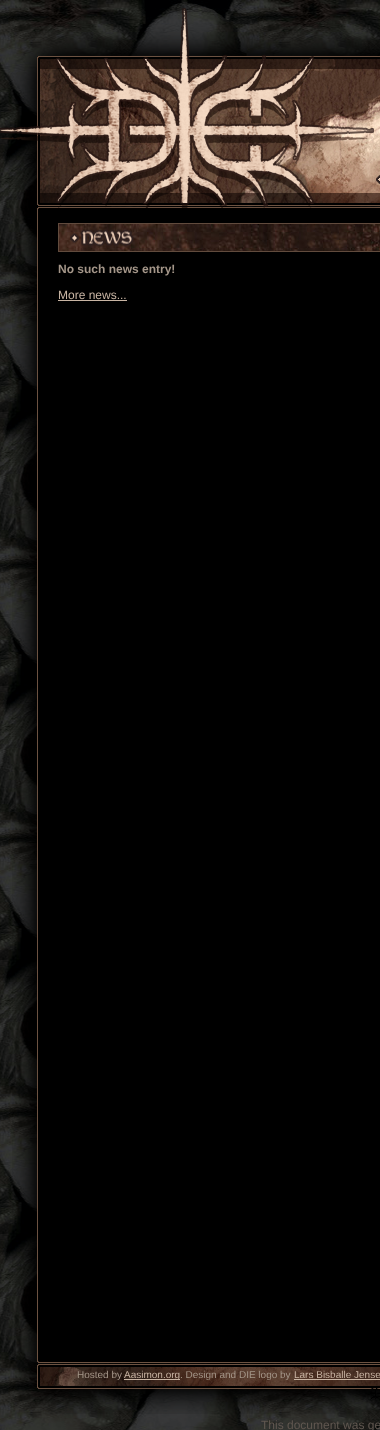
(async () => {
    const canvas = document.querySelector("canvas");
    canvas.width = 380;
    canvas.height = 1430;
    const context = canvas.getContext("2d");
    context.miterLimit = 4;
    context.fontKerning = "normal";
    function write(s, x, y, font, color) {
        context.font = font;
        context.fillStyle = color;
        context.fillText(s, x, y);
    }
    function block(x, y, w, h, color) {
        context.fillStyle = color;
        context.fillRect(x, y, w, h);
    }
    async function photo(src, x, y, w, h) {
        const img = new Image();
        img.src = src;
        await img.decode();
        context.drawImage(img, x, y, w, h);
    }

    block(0, 0, 380, 1430, "rgb(255, 255, 255)");
    await photo("media/1.png", 0, 0, 380, 1430);
    await photo("media/2.png", 0, 8, 380, 201);
    await photo("media/3.png", 376, 175, 4, 9);
    await photo("media/4.png", 12, 209, 368, 1152);
    await photo("media/5.png", 59, 224, 321, 27);
    context.strokeStyle = "rgb(97, 75, 61)";
    context.strokeRect(58.5, 223.5, 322, 28);
    await photo("media/6.png", 70, 229, 64, 18);
    write("No such news entry!", 58, 273, "bold 12px Liberation Sans", "rgb(164, 150, 137)");
    write("More news...", 58, 299, "12px Liberation Sans", "rgb(201, 181, 164)");
    block(58, 300, 69, 1, "rgb(201, 181, 164)");
    await photo("media/7.png", 13, 1361, 367, 53);
    write("Hosted by", 77, 1378, "10px Liberation Sans", "rgb(164, 150, 137)");
    block(124, 1379, 56, 1, "rgb(201, 181, 164)");
    write("Aasimon.org", 124, 1378, "10px Liberation Sans", "rgb(201, 181, 164)");
    write(". Design and DIE logo by", 180, 1378, "10px Liberation Sans", "rgb(164, 150, 137)");
    write("Lars Bisballe Jense", 294, 1378, "10px Liberation Sans", "rgb(201, 181, 164)");
    block(294, 1379, 86, 1, "rgb(201, 181, 164)");
    write("This document was ge", 261, 1429, "12px Liberation Sans", "rgb(96, 87, 80)");
    await photo("media/8.png", 370, 1388, 10, 12);
})();
